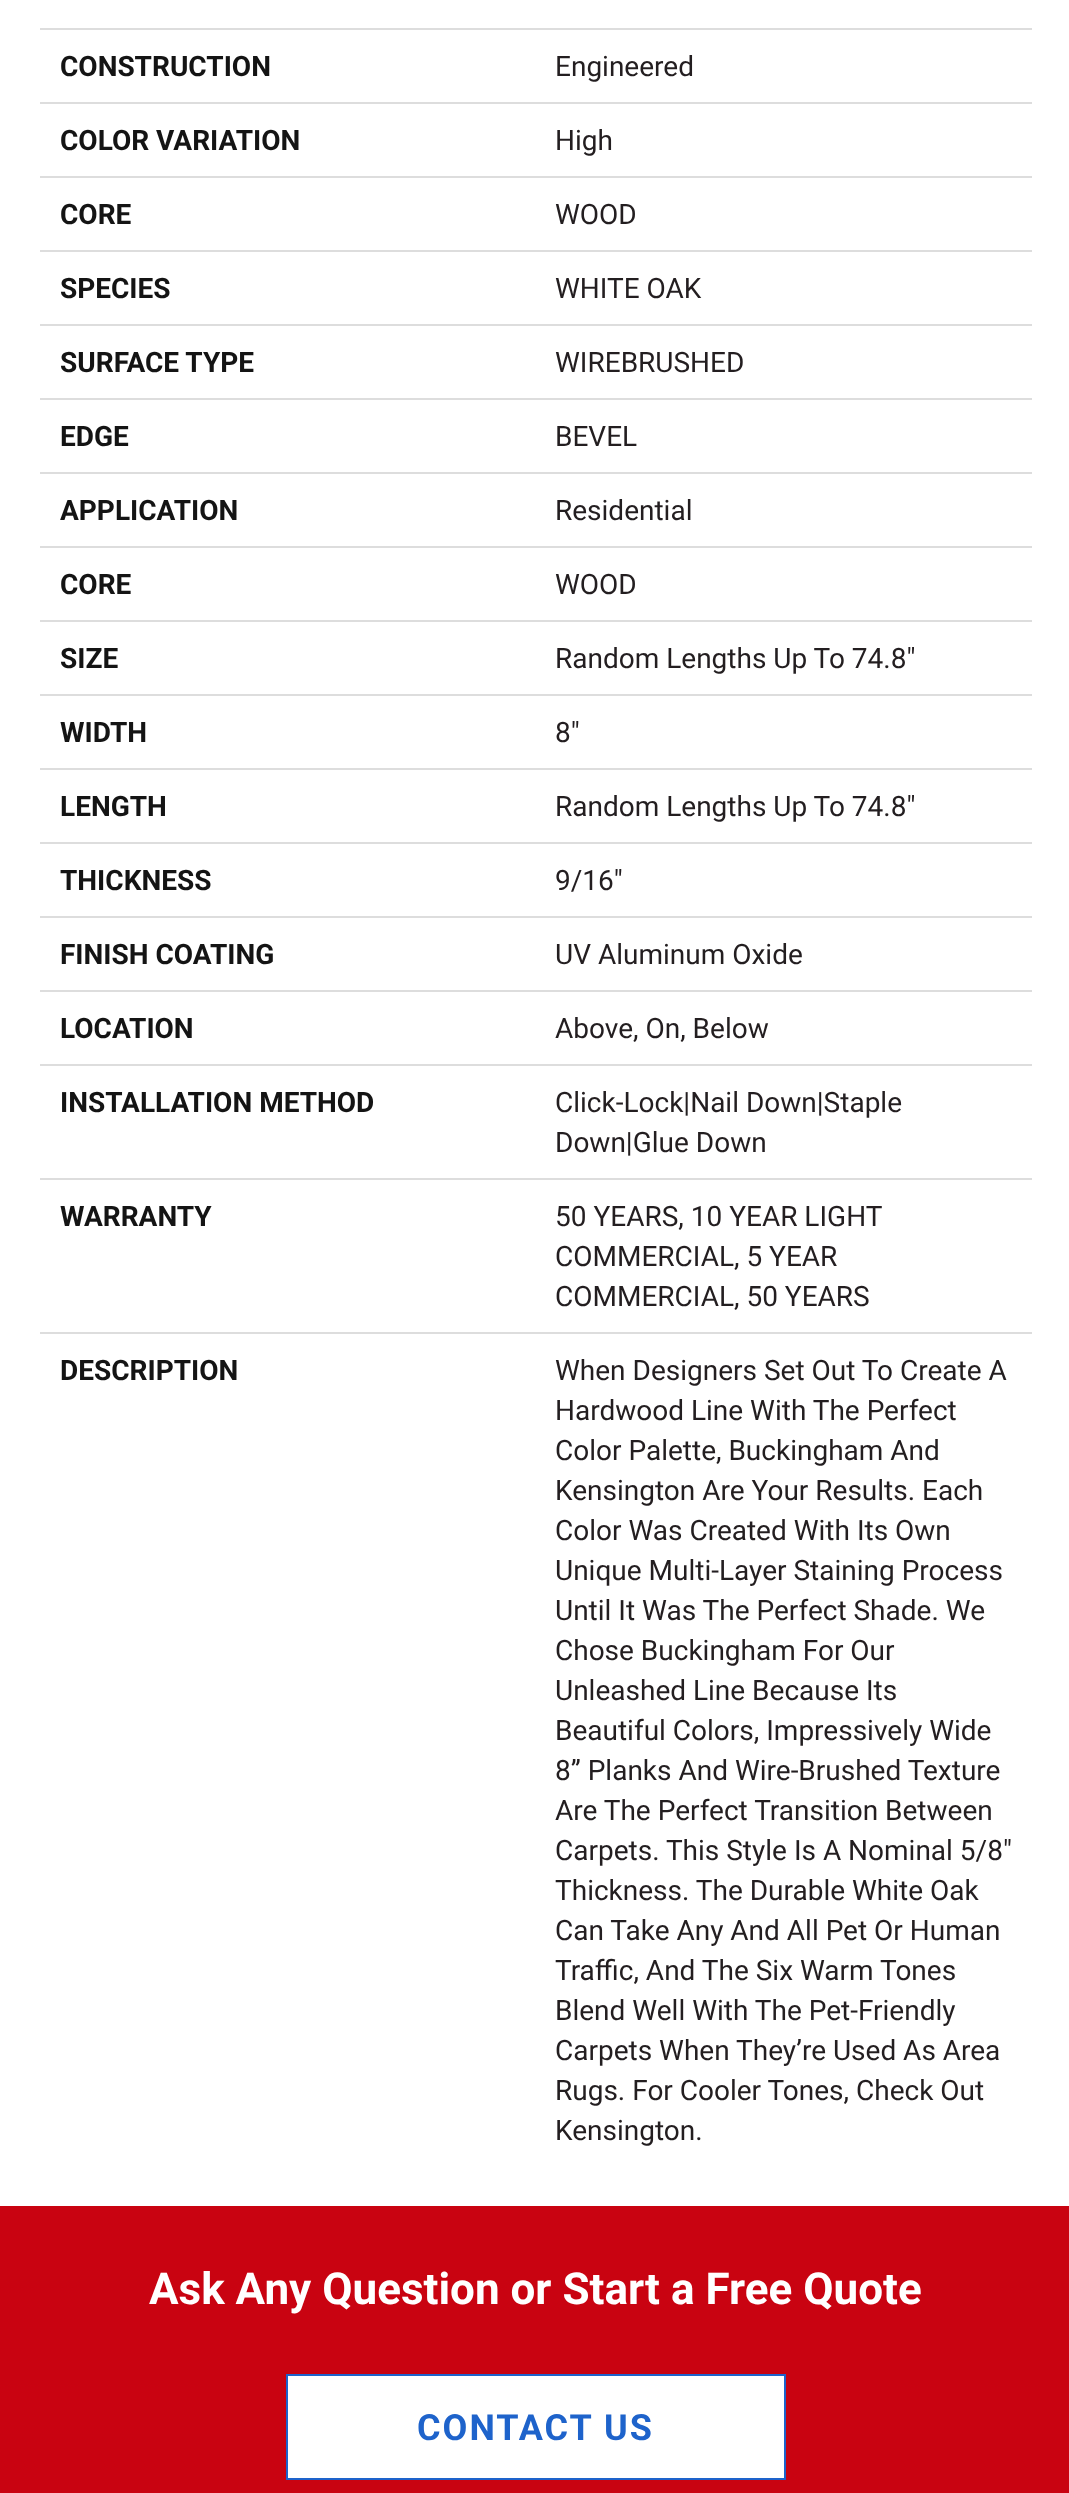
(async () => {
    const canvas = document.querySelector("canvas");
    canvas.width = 1069;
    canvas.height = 2493;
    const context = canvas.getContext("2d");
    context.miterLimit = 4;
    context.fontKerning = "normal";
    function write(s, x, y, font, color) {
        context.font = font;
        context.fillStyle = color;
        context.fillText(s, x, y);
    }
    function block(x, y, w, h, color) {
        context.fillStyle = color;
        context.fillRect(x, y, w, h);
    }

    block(0, 0, 1069, 2493, "rgb(255, 255, 255)");
    write("CONSTRUCTION", 60, 76, "bold 28px Roboto", "rgb(20, 20, 20)");
    block(40, 28, 992, 2, "rgb(221, 221, 221)");
    write("Engineered", 555, 76, "28px Roboto", "rgb(35, 30, 32)");
    write("COLOR VARIATION", 60, 150, "bold 28px Roboto", "rgb(20, 20, 20)");
    block(40, 102, 992, 2, "rgb(221, 221, 221)");
    write("High", 555, 150, "28px Roboto", "rgb(35, 30, 32)");
    write("CORE", 60, 224, "bold 28px Roboto", "rgb(20, 20, 20)");
    block(40, 176, 992, 2, "rgb(221, 221, 221)");
    write("WOOD", 555, 224, "28px Roboto", "rgb(35, 30, 32)");
    write("SPECIES", 60, 298, "bold 28px Roboto", "rgb(20, 20, 20)");
    block(40, 250, 992, 2, "rgb(221, 221, 221)");
    write("WHITE OAK", 555, 298, "28px Roboto", "rgb(35, 30, 32)");
    write("SURFACE TYPE", 60, 372, "bold 28px Roboto", "rgb(20, 20, 20)");
    block(40, 324, 992, 2, "rgb(221, 221, 221)");
    write("WIREBRUSHED", 555, 372, "28px Roboto", "rgb(35, 30, 32)");
    write("EDGE", 60, 446, "bold 28px Roboto", "rgb(20, 20, 20)");
    block(40, 398, 992, 2, "rgb(221, 221, 221)");
    write("BEVEL", 555, 446, "28px Roboto", "rgb(35, 30, 32)");
    write("APPLICATION", 60, 520, "bold 28px Roboto", "rgb(20, 20, 20)");
    block(40, 472, 992, 2, "rgb(221, 221, 221)");
    write("Residential", 555, 520, "28px Roboto", "rgb(35, 30, 32)");
    write("CORE", 60, 594, "bold 28px Roboto", "rgb(20, 20, 20)");
    block(40, 546, 992, 2, "rgb(221, 221, 221)");
    write("WOOD", 555, 594, "28px Roboto", "rgb(35, 30, 32)");
    write("SIZE", 60, 668, "bold 28px Roboto", "rgb(20, 20, 20)");
    block(40, 620, 992, 2, "rgb(221, 221, 221)");
    write("Random Lengths Up To 74.8\"", 555, 668, "28px Roboto", "rgb(35, 30, 32)");
    write("WIDTH", 60, 742, "bold 28px Roboto", "rgb(20, 20, 20)");
    block(40, 694, 992, 2, "rgb(221, 221, 221)");
    write("8\"", 555, 742, "28px Roboto", "rgb(35, 30, 32)");
    write("LENGTH", 60, 816, "bold 28px Roboto", "rgb(20, 20, 20)");
    block(40, 768, 992, 2, "rgb(221, 221, 221)");
    write("Random Lengths Up To 74.8\"", 555, 816, "28px Roboto", "rgb(35, 30, 32)");
    write("THICKNESS", 60, 890, "bold 28px Roboto", "rgb(20, 20, 20)");
    block(40, 842, 992, 2, "rgb(221, 221, 221)");
    write("9/16\"", 555, 890, "28px Roboto", "rgb(35, 30, 32)");
    write("FINISH COATING", 60, 964, "bold 28px Roboto", "rgb(20, 20, 20)");
    block(40, 916, 992, 2, "rgb(221, 221, 221)");
    write("UV Aluminum Oxide", 555, 964, "28px Roboto", "rgb(35, 30, 32)");
    write("LOCATION", 60, 1038, "bold 28px Roboto", "rgb(20, 20, 20)");
    block(40, 990, 992, 2, "rgb(221, 221, 221)");
    write("Above, On, Below", 555, 1038, "28px Roboto", "rgb(35, 30, 32)");
    write("INSTALLATION METHOD", 60, 1112, "bold 28px Roboto", "rgb(20, 20, 20)");
    block(40, 1064, 992, 2, "rgb(221, 221, 221)");
    write("Click-Lock|Nail Down|Staple", 555, 1112, "28px Roboto", "rgb(35, 30, 32)");
    write("Down|Glue Down", 555, 1152, "28px Roboto", "rgb(35, 30, 32)");
    write("WARRANTY", 60, 1226, "bold 28px Roboto", "rgb(20, 20, 20)");
    block(40, 1178, 992, 2, "rgb(221, 221, 221)");
    write("50 YEARS, 10 YEAR LIGHT", 555, 1226, "28px Roboto", "rgb(35, 30, 32)");
    write("COMMERCIAL, 5 YEAR", 555, 1266, "28px Roboto", "rgb(35, 30, 32)");
    write("COMMERCIAL, 50 YEARS", 555, 1306, "28px Roboto", "rgb(35, 30, 32)");
    write("DESCRIPTION", 60, 1380, "bold 28px Roboto", "rgb(20, 20, 20)");
    block(40, 1332, 992, 2, "rgb(221, 221, 221)");
    write("When Designers Set Out To Create A", 555, 1380, "28px Roboto", "rgb(35, 30, 32)");
    write("Hardwood Line With The Perfect", 555, 1420, "28px Roboto", "rgb(35, 30, 32)");
    write("Color Palette, Buckingham And", 555, 1460, "28px Roboto", "rgb(35, 30, 32)");
    write("Kensington Are Your Results. Each", 555, 1500, "28px Roboto", "rgb(35, 30, 32)");
    write("Color Was Created With Its Own", 555, 1540, "28px Roboto", "rgb(35, 30, 32)");
    write("Unique Multi-Layer Staining Process", 555, 1580, "28px Roboto", "rgb(35, 30, 32)");
    write("Until It Was The Perfect Shade. We", 555, 1620, "28px Roboto", "rgb(35, 30, 32)");
    write("Chose Buckingham For Our", 555, 1660, "28px Roboto", "rgb(35, 30, 32)");
    write("Unleashed Line Because Its", 555, 1700, "28px Roboto", "rgb(35, 30, 32)");
    write("Beautiful Colors, Impressively Wide", 555, 1740, "28px Roboto", "rgb(35, 30, 32)");
    write("8” Planks And Wire-Brushed Texture", 555, 1780, "28px Roboto", "rgb(35, 30, 32)");
    write("Are The Perfect Transition Between", 555, 1820, "28px Roboto", "rgb(35, 30, 32)");
    write("Carpets. This Style Is A Nominal 5/8\"", 555, 1860, "28px Roboto", "rgb(35, 30, 32)");
    write("Thickness. The Durable White Oak", 555, 1900, "28px Roboto", "rgb(35, 30, 32)");
    write("Can Take Any And All Pet Or Human", 555, 1940, "28px Roboto", "rgb(35, 30, 32)");
    write("Traffic, And The Six Warm Tones", 555, 1980, "28px Roboto", "rgb(35, 30, 32)");
    write("Blend Well With The Pet-Friendly", 555, 2020, "28px Roboto", "rgb(35, 30, 32)");
    write("Carpets When They’re Used As Area", 555, 2060, "28px Roboto", "rgb(35, 30, 32)");
    write("Rugs. For Cooler Tones, Check Out", 555, 2100, "28px Roboto", "rgb(35, 30, 32)");
    write("Kensington.", 555, 2140, "28px Roboto", "rgb(35, 30, 32)");
    block(0, 2206, 1069, 287, "rgb(201, 3, 17)");
    write("Ask Any Question or Start a Free Quote", 149, 2304, "bold 44px Roboto", "rgb(255, 255, 255)");
    context.beginPath();
    context.rect(287, 2375, 498, 104);
    context.fill();
    context.strokeStyle = "rgb(30, 99, 203)";
    context.lineWidth = 2;
    context.stroke();
    context.letterSpacing = "2px";
    write("CONTACT US", 417, 2440, "bold 36px Roboto", "rgb(30, 99, 203)");
})();
